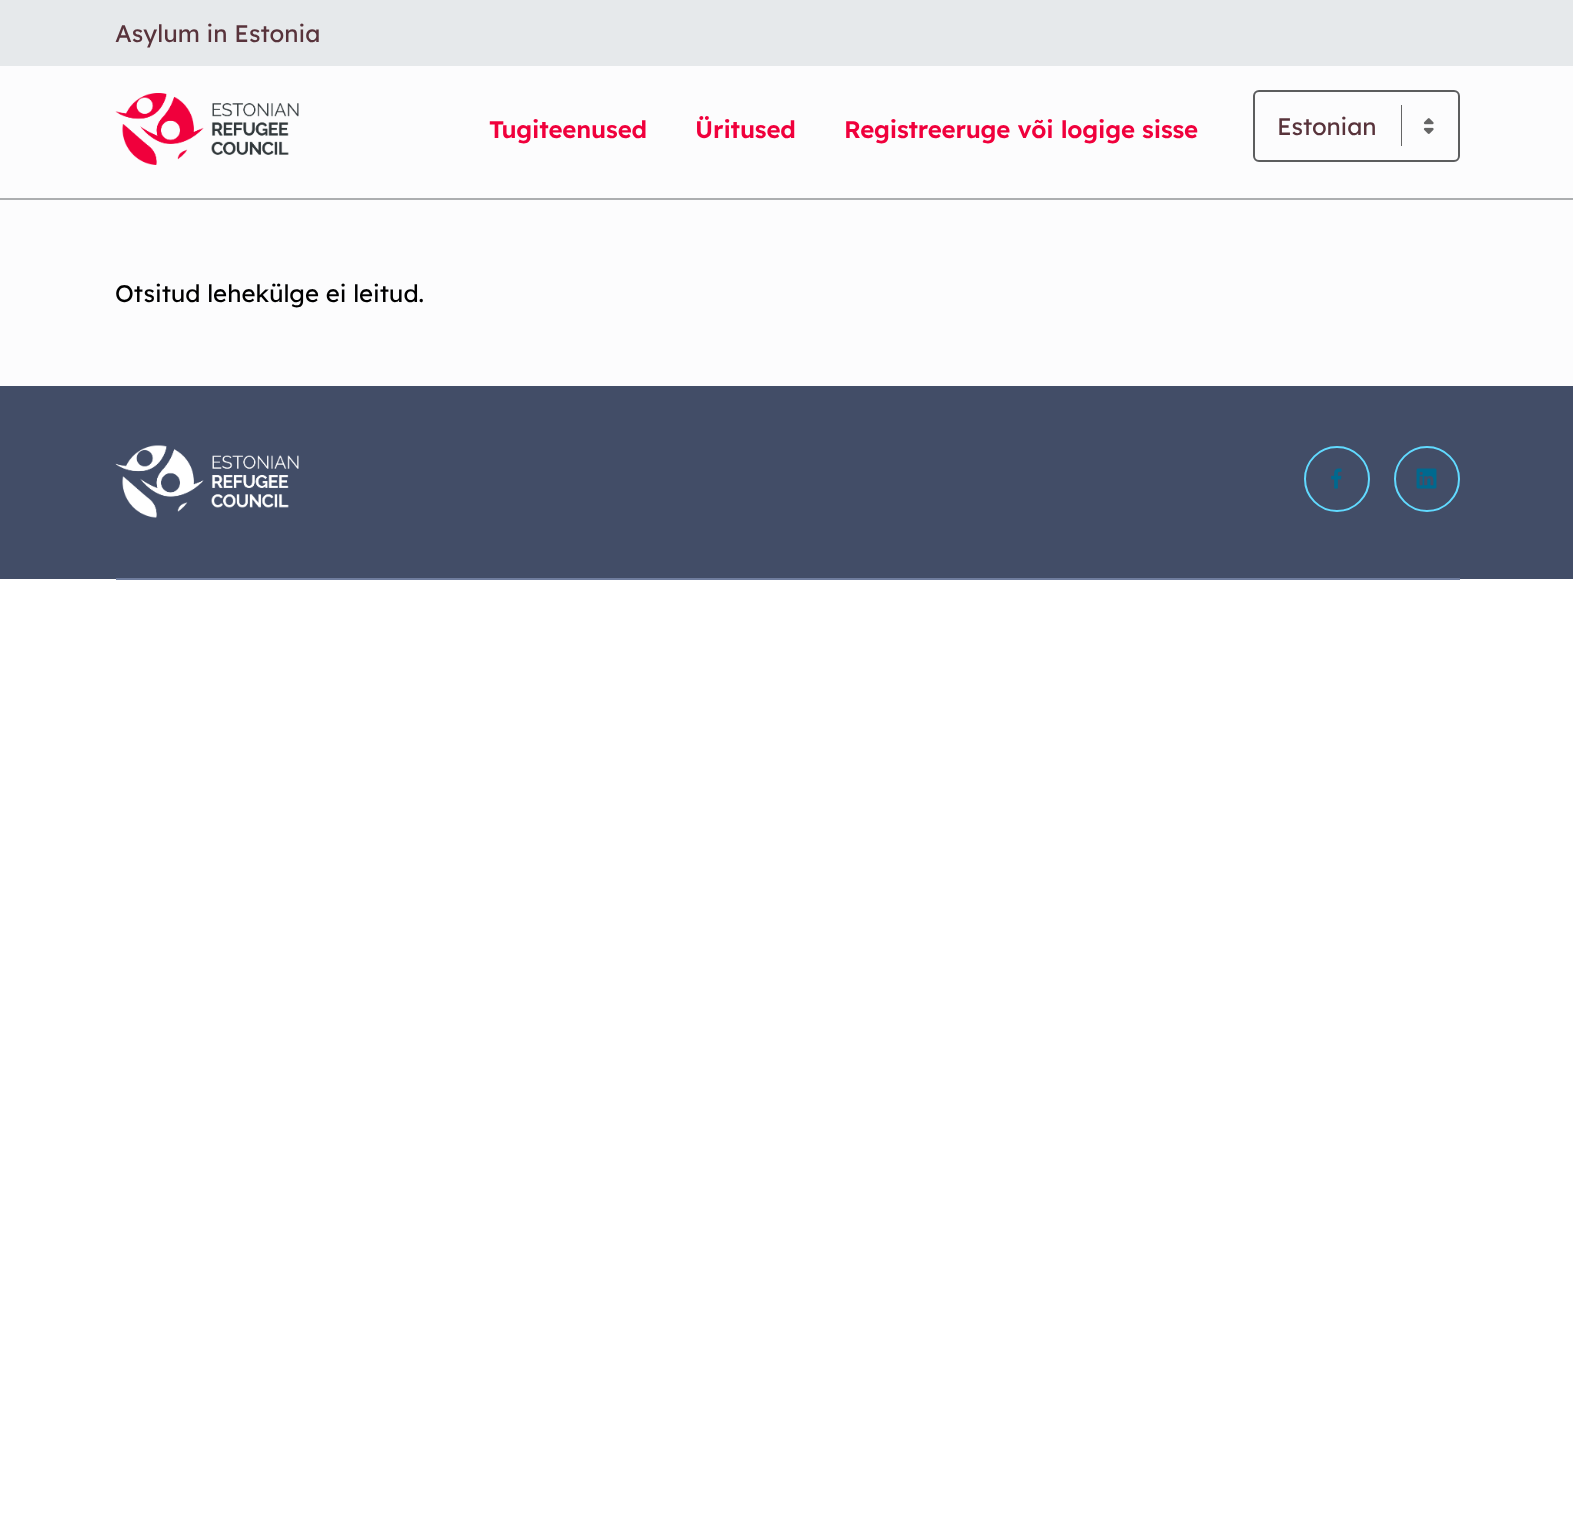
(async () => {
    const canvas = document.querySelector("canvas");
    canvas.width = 1573;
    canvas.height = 1532;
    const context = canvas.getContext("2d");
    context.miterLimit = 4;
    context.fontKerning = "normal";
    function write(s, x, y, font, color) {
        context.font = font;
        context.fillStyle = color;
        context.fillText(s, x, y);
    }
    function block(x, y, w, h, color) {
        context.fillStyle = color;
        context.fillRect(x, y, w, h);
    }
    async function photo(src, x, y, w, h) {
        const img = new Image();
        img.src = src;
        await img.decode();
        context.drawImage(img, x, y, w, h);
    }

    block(0, 0, 1573, 1532, "rgb(255, 255, 255)");
    block(0, 66, 1573, 320, "rgb(252, 252, 253)");
    block(0, 0, 1573, 66, "rgb(230, 233, 235)");
    write("Asylum in Estonia", 115, 42, "24px Lexend", "rgb(88, 51, 59)");
    block(0, 198, 1573, 2, "rgb(172, 174, 176)");
    await photo("media/1.png", 115, 93, 184, 72);
    context.letterSpacing = "-0.15px";
    write("Tugiteenused", 489, 138, "600 24px Lexend", "rgb(240, 0, 60)");
    write("Üritused", 695, 138, "600 24px Lexend", "rgb(240, 0, 60)");
    write("Registreeruge või logige sisse", 844, 138, "600 24px Lexend", "rgb(240, 0, 60)");
    await photo("media/2.png", 1401, 105, 33, 41);
    context.beginPath();
    context.roundRect(1254, 91, 205, 70, 5);
    context.strokeStyle = "rgb(92, 93, 94)";
    context.lineWidth = 2;
    context.stroke();
    write("Estonian", 1277, 135, "24px Lexend", "rgb(88, 51, 59)");
    context.letterSpacing = "0px";
    write("Otsitud lehekülge ei leitud.", 115, 302, "24px Lexend", "rgb(0, 0, 0)");
    block(0, 386, 1573, 193, "rgb(66, 77, 103)");
    block(116, 578, 1344, 2, "rgb(111, 125, 158)");
    await photo("media/3.png", 115, 445, 184, 73);
    context.beginPath();
    context.arc(1337, 479, 32, 0, Math.PI * 2);
    context.strokeStyle = "rgb(97, 218, 255)";
    context.stroke();
    await photo("media/4.png", 1331, 468, 11, 21);
    context.beginPath();
    context.arc(1427, 479, 32, 0, Math.PI * 2);
    context.stroke();
    await photo("media/5.png", 1416, 468, 21, 21);
})();
